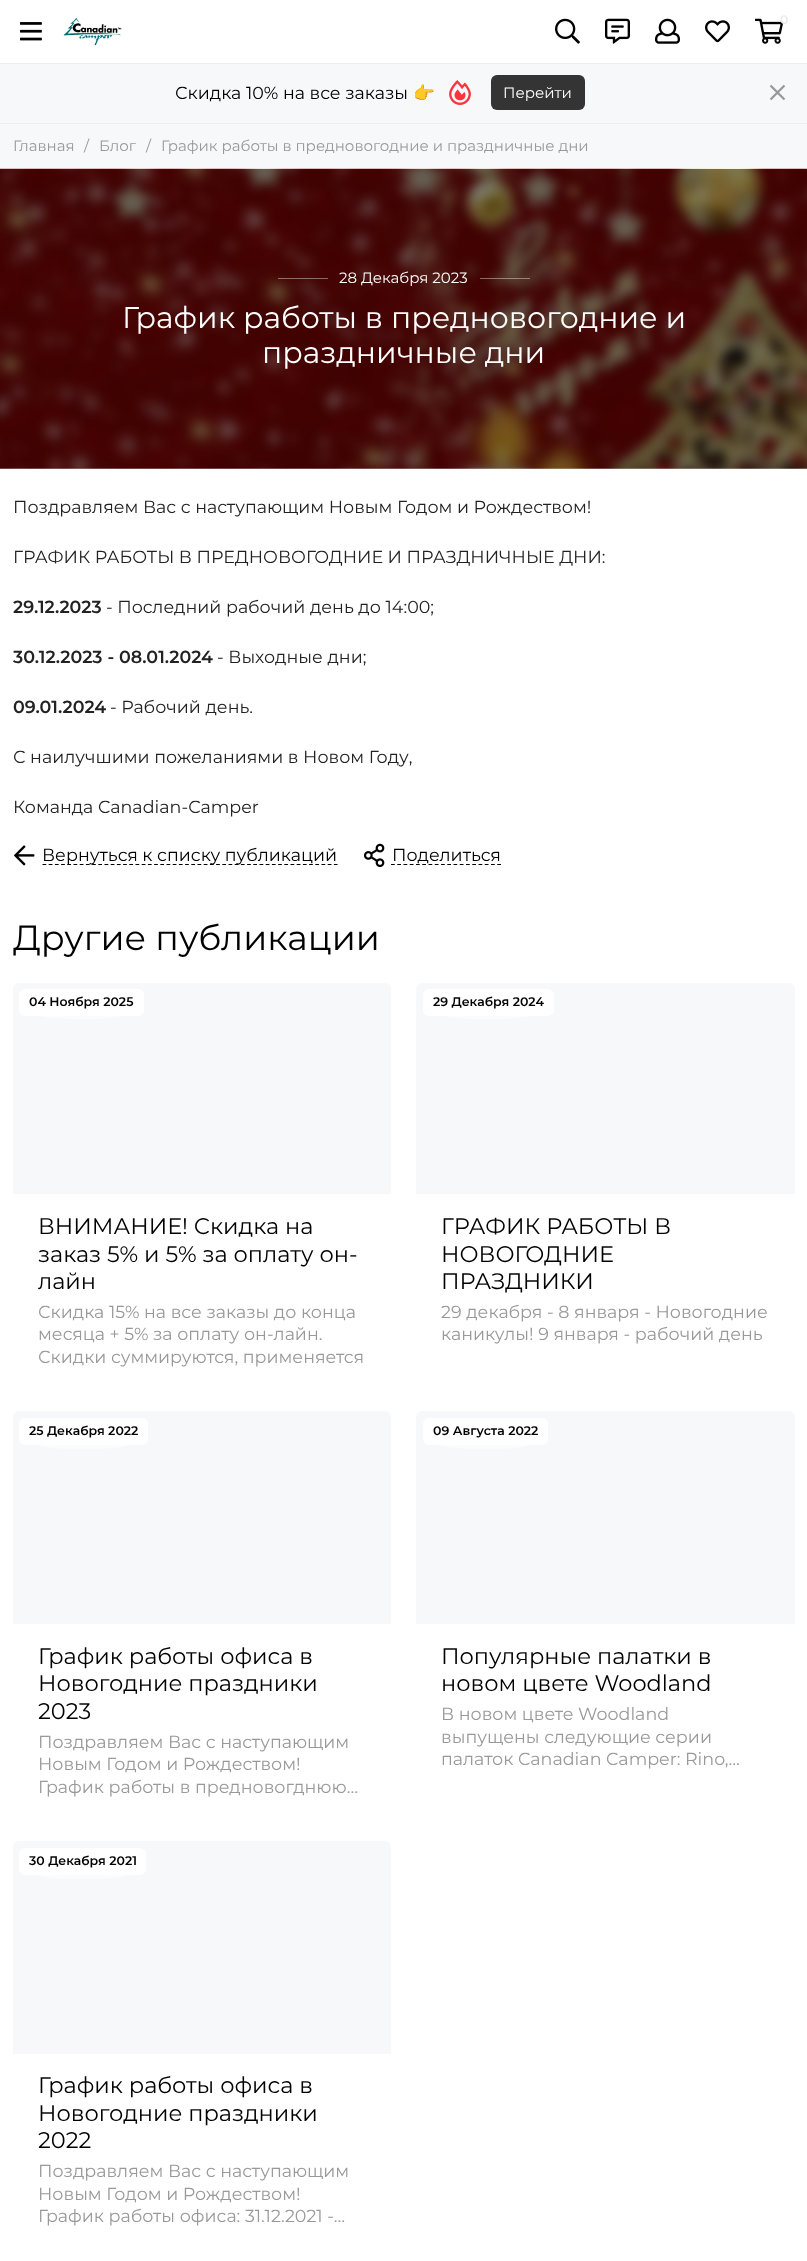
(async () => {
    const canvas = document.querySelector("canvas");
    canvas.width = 807;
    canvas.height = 2261;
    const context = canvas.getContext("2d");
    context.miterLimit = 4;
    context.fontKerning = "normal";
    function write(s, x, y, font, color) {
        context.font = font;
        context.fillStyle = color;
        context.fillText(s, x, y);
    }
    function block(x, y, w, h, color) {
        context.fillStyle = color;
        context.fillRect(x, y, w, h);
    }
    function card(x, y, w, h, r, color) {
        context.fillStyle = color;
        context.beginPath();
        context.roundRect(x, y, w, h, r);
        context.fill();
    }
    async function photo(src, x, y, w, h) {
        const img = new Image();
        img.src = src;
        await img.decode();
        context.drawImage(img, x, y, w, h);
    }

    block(0, 0, 807, 2261, "rgb(255, 255, 255)");
    context.fillStyle = "rgb(238, 238, 238)";
    context.beginPath();
    context.moveTo(0, 62);
    context.lineTo(0, 64);
    context.lineTo(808, 64);
    context.lineTo(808, 1);
    context.lineTo(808, 62);
    context.closePath();
    context.fill();
    block(0, 62, 807, 1, "rgb(255, 255, 255)");
    await photo("media/1.png", 20, 22, 22, 19);
    await photo("media/2.png", 63, 16, 59, 30);
    await photo("media/3.png", 555, 18, 25, 26);
    await photo("media/4.png", 605, 18, 25, 26);
    await photo("media/5.png", 655, 18, 25, 26);
    await photo("media/6.png", 705, 20, 25, 23);
    await photo("media/7.png", 755, 18, 29, 26);
    write("0", 780, 24, "600 12.5px Montserrat", "rgb(235, 235, 235)");
    block(0, 64, 807, 59, "rgb(247, 248, 250)");
    block(0, 123, 807, 1, "rgb(238, 238, 238)");
    write("Скидка 10% на все заказы", 175, 99, "17.5px Montserrat", "rgb(0, 0, 0)");
    write("👉", 413, 99, "17.5px Noto Color Emoji", "rgb(0, 0, 0)");
    await photo("media/8.png", 449, 80, 22, 25);
    card(491, 75, 94, 35, 6, "rgb(52, 52, 52)");
    write("Перейти", 503, 98, "15px Montserrat", "rgb(255, 255, 255)");
    context.beginPath();
    context.moveTo(770.5, 85.5);
    context.lineTo(784.5, 99.5);
    context.moveTo(784.5, 85.5);
    context.lineTo(770.5, 99.5);
    context.strokeStyle = "rgb(153, 153, 153)";
    context.lineWidth = 2.3;
    context.stroke();
    block(0, 124, 807, 45, "rgb(247, 248, 250)");
    write("Главная", 13, 151, "15px Montserrat", "rgb(153, 153, 153)");
    write("/", 84, 151, "15px Montserrat", "rgb(153, 153, 153)");
    write("Блог", 99, 151, "15px Montserrat", "rgb(153, 153, 153)");
    write("/", 146, 151, "15px Montserrat", "rgb(153, 153, 153)");
    write("График работы в предновогодние и праздничные дни", 161, 151, "15px Montserrat", "rgb(153, 153, 153)");
    await photo("media/9.png", 0, 168, 807, 301);
    block(278, 278, 50, 1, "rgba(255, 255, 255, 0.4)");
    write("28 Декабря 2023", 339, 283, "15px Montserrat", "rgb(255, 255, 255)");
    block(480, 278, 50, 1, "rgba(255, 255, 255, 0.4)");
    write("График работы в предновогодние и", 122, 328, "30px Montserrat", "rgb(255, 255, 255)");
    write("праздничные дни", 262, 363, "30px Montserrat", "rgb(255, 255, 255)");
    write("Поздравляем Вас с наступающим Новым Годом и Рождеством!", 13, 513, "17.5px Montserrat", "rgb(34, 34, 34)");
    write("ГРАФИК РАБОТЫ В ПРЕДНОВОГОДНИЕ И ПРАЗДНИЧНЫЕ ДНИ:", 13, 563, "17.5px Montserrat", "rgb(34, 34, 34)");
    write("29.12.2023", 13, 613, "600 17.5px Montserrat", "rgb(34, 34, 34)");
    write("- Последний рабочий день до 14:00;", 106, 613, "17.5px Montserrat", "rgb(34, 34, 34)");
    write("30.12.2023 - 08.01.2024", 13, 663, "600 17.5px Montserrat", "rgb(34, 34, 34)");
    write("- Выходные дни;", 217, 663, "17.5px Montserrat", "rgb(34, 34, 34)");
    write("09.01.2024", 13, 713, "600 17.5px Montserrat", "rgb(34, 34, 34)");
    write("- Рабочий день.", 110, 713, "17.5px Montserrat", "rgb(34, 34, 34)");
    write("С наилучшими пожеланиями в Новом Году,", 13, 763, "17.5px Montserrat", "rgb(34, 34, 34)");
    write("Команда Canadian-Camper", 13, 813, "17.5px Montserrat", "rgb(34, 34, 34)");
    await photo("media/10.png", 14, 845, 21, 21);
    context.beginPath();
    context.moveTo(42.5, 864.5);
    context.lineTo(337.5, 864.5);
    context.strokeStyle = "rgb(0, 0, 0)";
    context.lineWidth = 1.2;
    context.setLineDash([3.75, 2.45]);
    context.stroke();
    write("Вернуться к списку публикаций", 42, 861, "17.5px Montserrat", "rgb(0, 0, 0)");
    await photo("media/11.png", 364, 843, 21, 24);
    context.beginPath();
    context.moveTo(391, 864.5);
    context.lineTo(501, 864.5);
    context.setLineDash([3.75, 2.5]);
    context.stroke();
    write("Поделиться", 392, 861, "17.5px Montserrat", "rgb(0, 0, 0)");
    write("Другие публикации", 13, 950, "35px Montserrat", "rgb(0, 0, 0)");
    context.fillStyle = "rgb(247, 248, 250)";
    context.beginPath();
    context.roundRect(13, 983, 378, 211, [6, 6, 0, 0]);
    context.fill();
    card(19, 989, 125, 27, 6, "rgb(255, 255, 255)");
    context.fillStyle = "rgba(255, 255, 255, 0.5)";
    context.beginPath();
    context.moveTo(70, 995);
    context.lineTo(92, 995);
    context.bezierCurveTo(117, 995, 138, 999, 138, 1004);
    context.lineTo(138, 1009);
    context.bezierCurveTo(138, 1014, 117, 1019, 92, 1019);
    context.lineTo(70, 1019);
    context.bezierCurveTo(45, 1019, 25, 1014, 25, 1009);
    context.lineTo(25, 1004);
    context.bezierCurveTo(25, 999, 45, 995, 70, 995);
    context.closePath();
    context.fill();
    write("04 Ноября 2025", 29, 1006, "600 12.5px Montserrat", "rgb(0, 0, 0)");
    write("ВНИМАНИЕ! Скидка на", 38, 1234, "22.5px Montserrat", "rgb(0, 0, 0)");
    write("заказ 5% и 5% за оплату он-", 38, 1262, "22.5px Montserrat", "rgb(0, 0, 0)");
    write("лайн", 38, 1289, "22.5px Montserrat", "rgb(0, 0, 0)");
    write("Скидка 15% на все заказы до конца", 38, 1318, "17.5px Montserrat", "rgb(153, 153, 153)");
    write("месяца + 5% за оплату он-лайн.", 38, 1340, "17.5px Montserrat", "rgb(153, 153, 153)");
    write("Скидки суммируются, применяется", 38, 1363, "17.5px Montserrat", "rgb(153, 153, 153)");
    context.fillStyle = "rgb(247, 248, 250)";
    context.beginPath();
    context.roundRect(416, 983, 379, 211, [6, 6, 0, 0]);
    context.fill();
    card(423, 989, 131, 27, 6, "rgb(255, 255, 255)");
    context.fillStyle = "rgba(255, 255, 255, 0.5)";
    context.beginPath();
    context.moveTo(476, 995);
    context.lineTo(499, 995);
    context.bezierCurveTo(525, 995, 546, 999, 546, 1004);
    context.lineTo(546, 1009);
    context.bezierCurveTo(546, 1014, 525, 1019, 499, 1019);
    context.lineTo(476, 1019);
    context.bezierCurveTo(450, 1019, 429, 1014, 429, 1009);
    context.lineTo(429, 1004);
    context.bezierCurveTo(429, 999, 450, 995, 476, 995);
    context.closePath();
    context.fill();
    write("29 Декабря 2024", 433, 1006, "600 12.5px Montserrat", "rgb(0, 0, 0)");
    write("ГРАФИК РАБОТЫ В", 441, 1234, "22.5px Montserrat", "rgb(0, 0, 0)");
    write("НОВОГОДНИЕ", 441, 1262, "22.5px Montserrat", "rgb(0, 0, 0)");
    write("ПРАЗДНИКИ", 441, 1289, "22.5px Montserrat", "rgb(0, 0, 0)");
    write("29 декабря - 8 января - Новогодние", 441, 1318, "17.5px Montserrat", "rgb(153, 153, 153)");
    write("каникулы! 9 января - рабочий день", 441, 1340, "17.5px Montserrat", "rgb(153, 153, 153)");
    context.fillStyle = "rgb(247, 248, 250)";
    context.beginPath();
    context.roundRect(13, 1411, 378, 213, [6, 6, 0, 0]);
    context.fill();
    card(19, 1418, 129, 27, 6, "rgb(255, 255, 255)");
    context.fillStyle = "rgba(255, 255, 255, 0.5)";
    context.beginPath();
    context.moveTo(72, 1424);
    context.lineTo(95, 1424);
    context.bezierCurveTo(120, 1424, 141, 1428, 141, 1434);
    context.lineTo(141, 1439);
    context.bezierCurveTo(141, 1444, 120, 1449, 95, 1449);
    context.lineTo(72, 1449);
    context.bezierCurveTo(46, 1449, 25, 1444, 25, 1439);
    context.lineTo(25, 1434);
    context.bezierCurveTo(25, 1428, 46, 1424, 72, 1424);
    context.closePath();
    context.fill();
    write("25 Декабря 2022", 29, 1435, "600 12.5px Montserrat", "rgb(0, 0, 0)");
    write("График работы офиса в", 38, 1664, "22.5px Montserrat", "rgb(0, 0, 0)");
    write("Новогодние праздники", 38, 1691, "22.5px Montserrat", "rgb(0, 0, 0)");
    write("2023", 38, 1719, "22.5px Montserrat", "rgb(0, 0, 0)");
    write("Поздравляем Вас с наступающим", 38, 1748, "17.5px Montserrat", "rgb(153, 153, 153)");
    write("Новым Годом и Рождеством!", 38, 1770, "17.5px Montserrat", "rgb(153, 153, 153)");
    write("График работы в предновогднюю…", 38, 1793, "17.5px Montserrat", "rgb(153, 153, 153)");
    context.fillStyle = "rgb(247, 248, 250)";
    context.beginPath();
    context.roundRect(416, 1411, 379, 213, [6, 6, 0, 0]);
    context.fill();
    card(423, 1418, 125, 27, 6, "rgb(255, 255, 255)");
    context.fillStyle = "rgba(255, 255, 255, 0.5)";
    context.beginPath();
    context.moveTo(474, 1424);
    context.lineTo(496, 1424);
    context.bezierCurveTo(521, 1424, 541, 1428, 541, 1434);
    context.lineTo(541, 1439);
    context.bezierCurveTo(541, 1444, 521, 1449, 496, 1449);
    context.lineTo(474, 1449);
    context.bezierCurveTo(449, 1449, 429, 1444, 429, 1439);
    context.lineTo(429, 1434);
    context.bezierCurveTo(429, 1428, 449, 1424, 474, 1424);
    context.closePath();
    context.fill();
    write("09 Августа 2022", 433, 1435, "600 12.5px Montserrat", "rgb(0, 0, 0)");
    write("Популярные палатки в", 441, 1664, "22.5px Montserrat", "rgb(0, 0, 0)");
    write("новом цвете Woodland", 441, 1691, "22.5px Montserrat", "rgb(0, 0, 0)");
    write("В новом цвете Woodland", 441, 1720, "17.5px Montserrat", "rgb(153, 153, 153)");
    write("выпущены следующие серии", 441, 1743, "17.5px Montserrat", "rgb(153, 153, 153)");
    write("палаток Canadian Camper: Rino,…", 441, 1765, "17.5px Montserrat", "rgb(153, 153, 153)");
    context.fillStyle = "rgb(247, 248, 250)";
    context.beginPath();
    context.roundRect(13, 1841, 378, 213, [6, 6, 0, 0]);
    context.fill();
    card(19, 1848, 127, 27, 6, "rgb(255, 255, 255)");
    context.fillStyle = "rgba(255, 255, 255, 0.5)";
    context.beginPath();
    context.moveTo(71, 1854);
    context.lineTo(94, 1854);
    context.bezierCurveTo(119, 1854, 140, 1858, 140, 1864);
    context.lineTo(140, 1869);
    context.bezierCurveTo(140, 1874, 119, 1879, 94, 1879);
    context.lineTo(71, 1879);
    context.bezierCurveTo(46, 1879, 25, 1874, 25, 1869);
    context.lineTo(25, 1864);
    context.bezierCurveTo(25, 1858, 46, 1854, 71, 1854);
    context.closePath();
    context.fill();
    write("30 Декабря 2021", 29, 1865, "600 12.5px Montserrat", "rgb(0, 0, 0)");
    write("График работы офиса в", 38, 2093, "22.5px Montserrat", "rgb(0, 0, 0)");
    write("Новогодние праздники", 38, 2121, "22.5px Montserrat", "rgb(0, 0, 0)");
    write("2022", 38, 2148, "22.5px Montserrat", "rgb(0, 0, 0)");
    write("Поздравляем Вас с наступающим", 38, 2177, "17.5px Montserrat", "rgb(153, 153, 153)");
    write("Новым Годом и Рождеством!", 38, 2200, "17.5px Montserrat", "rgb(153, 153, 153)");
    write("График работы офиса: 31.12.2021 -…", 38, 2222, "17.5px Montserrat", "rgb(153, 153, 153)");
})();
